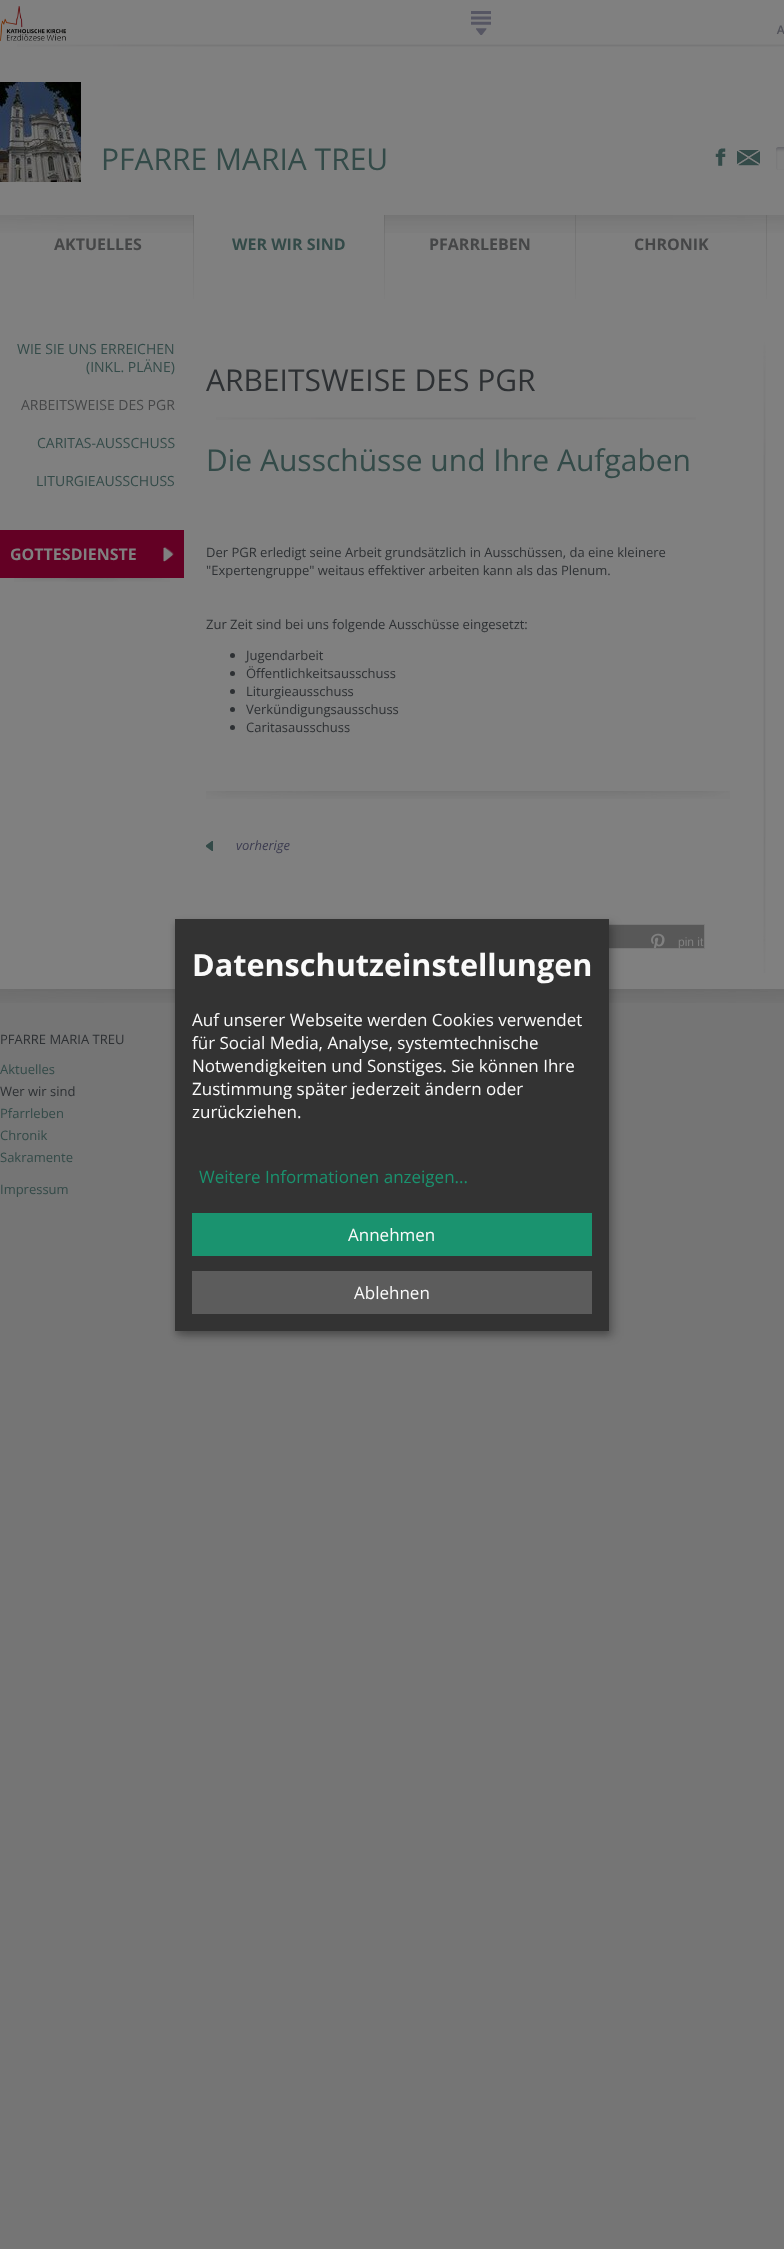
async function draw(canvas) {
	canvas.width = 784;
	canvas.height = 2249;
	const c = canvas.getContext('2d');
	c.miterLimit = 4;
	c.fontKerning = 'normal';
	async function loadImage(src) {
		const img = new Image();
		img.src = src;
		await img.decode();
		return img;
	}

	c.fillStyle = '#757575';
	c.fillRect(0, 0, 784, 2249);
	c.fillStyle = '#808080';
	c.fillRect(0, 0, 784, 989);
	c.drawImage(await loadImage('img1.png'), 17, 44, 767, 3);
	c.drawImage(await loadImage('img2.png'), 0, 6, 66, 35);
	c.drawImage(await loadImage('img3.png'), 471, 11, 20, 24);
	c.drawImage(await loadImage('img4.png'), 776, 25, 8, 9);
	c.drawImage(await loadImage('img5.png'), 0, 82, 81, 100);
	c.font = '30px Open Sans';
	c.fillStyle = '#334a48';
	c.fillText('PFARRE MARIA TREU', 101, 170);
	c.drawImage(await loadImage('img6.png'), 715, 148, 11, 18);
	c.drawImage(await loadImage('img7.png'), 737, 150, 23, 16);
	c.drawImage(await loadImage('img8.png'), 776, 147, 8, 23);
	c.drawImage(await loadImage('img9.png'), 0, 215, 784, 18);
	c.font = 'bold 16px Open Sans';
	c.fillStyle = '#454647';
	c.fillText('AKTUELLES', 54, 250);
	c.drawImage(await loadImage('img10.png'), 193, 215, 1, 84);
	c.fillStyle = '#808080';
	c.fillRect(194, 215, 190, 18);
	c.fillStyle = '#334a48';
	c.fillText('WER WIR SIND', 232, 250);
	c.drawImage(await loadImage('img10.png'), 384, 215, 1, 84);
	c.fillStyle = '#454647';
	c.fillText('PFARRLEBEN', 429, 250);
	c.drawImage(await loadImage('img10.png'), 575, 215, 1, 84);
	c.fillText('CHRONIK', 634, 250);
	c.drawImage(await loadImage('img11.png'), 766, 215, 1, 84);
	c.font = '14px Open Sans';
	c.fillStyle = '#334a48';
	c.fillText('WIE SIE UNS ERREICHEN', 17, 354);
	c.fillText('(INKL. PLÄNE)', 86, 372);
	c.fillStyle = '#454647';
	c.fillText('ARBEITSWEISE DES PGR', 21, 410);
	c.fillStyle = '#334a48';
	c.fillText('CARITAS-AUSSCHUSS', 37, 448);
	c.fillText('LITURGIEAUSSCHUSS', 36, 486);
	c.fillStyle = '#630024';
	c.fillRect(0, 530, 184, 48);
	c.drawImage(await loadImage('img12.png'), 163, 547, 11, 15);
	c.font = 'bold 16px Open Sans';
	c.fillStyle = '#808080';
	c.fillText('GOTTESDIENSTE', 10, 560);
	c.drawImage(await loadImage('img13.png'), 14, 578, 156, 4);
	c.drawImage(await loadImage('img14.png'), 763, 455, 3, 518);
	c.drawImage(await loadImage('img15.png'), 763, 340, 3, 115);
	c.drawImage(await loadImage('img16.png'), 216, 417, 480, 3);
	c.font = '30px Open Sans';
	c.fillStyle = '#2d3033';
	c.fillText('ARBEITSWEISE DES PGR', 206, 391);
	c.fillStyle = '#334a48';
	c.fillText('Die Ausschüsse und Ihre Aufgaben', 206, 471);
	c.font = '13px Open Sans';
	c.fillStyle = '#2d3033';
	for (const [text, x, y] of [
		['Der PGR erledigt seine Arbeit grundsätzlich in Ausschüssen, da eine kleinere', 206, 557],
		['"Expertengruppe" weitaus effektiver arbeiten kann als das Plenum.', 206, 575],
		['Zur Zeit sind bei uns folgende Ausschüsse eingesetzt:', 206, 629],
	]) {
		c.fillText(text, x, y);
	}
	c.beginPath();
	c.arc(232.5, 655.5, 2.5, 0, 2 * Math.PI);
	c.fill();
	c.fillText('Jugendarbeit', 246, 660);
	c.beginPath();
	c.arc(232.5, 673.5, 2.5, 0, 2 * Math.PI);
	c.fill();
	c.fillText('Öffentlichkeitsausschuss', 246, 678);
	c.beginPath();
	c.arc(232.5, 691.5, 2.5, 0, 2 * Math.PI);
	c.fill();
	c.fillText('Liturgieausschuss', 246, 696);
	c.beginPath();
	c.arc(232.5, 709.5, 2.5, 0, 2 * Math.PI);
	c.fill();
	c.fillText('Verkündigungsausschuss', 246, 714);
	c.beginPath();
	c.arc(232.5, 727.5, 2.5, 0, 2 * Math.PI);
	c.fill();
	c.fillText('Caritasausschuss', 246, 732);
	c.drawImage(await loadImage('img17.png'), 206, 791, 524, 8);
	c.drawImage(await loadImage('img18.png'), 206, 841, 7, 10);
	c.font = 'italic 13px Open Sans';
	c.fillStyle = '#3c3c50';
	c.fillText('vorherige', 236, 850);
	c.strokeStyle = '#777';
	c.strokeRect(545.5, 924.5, 159, 24);
	c.fillStyle = '#585858';
	c.fillRect(609, 925, 95, 23);
	c.drawImage(await loadImage('img19.png'), 651, 933, 14, 15);
	c.font = '12px Liberation Sans';
	c.fillStyle = '#808080';
	c.fillText('pin it', 678, 946);
	c.drawImage(await loadImage('img20.png'), 0, 989, 784, 14);
	c.font = '13px Open Sans';
	c.fillStyle = '#2d3033';
	c.fillText('PFARRE MARIA TREU', 0, 1044);
	c.fillStyle = '#334a48';
	c.fillText('Aktuelles', 0, 1074);
	c.fillStyle = '#2d3033';
	c.fillText('Wer wir sind', 0, 1096);
	c.fillStyle = '#334a48';
	for (const [text, x, y] of [
		['Pfarrleben', 0, 1118],
		['Chronik', 0, 1140],
		['Sakramente', 0, 1162],
		['Impressum', 0, 1194],
	]) {
		c.fillText(text, x, y);
	}
	c.fillStyle = '#00000030';
	c.filter = 'blur(5px)';
	c.beginPath();
	c.rect(180, 924, 434, 412);
	c.fill();
	c.filter = 'none';
	c.fillStyle = '#00000033';
	c.filter = 'blur(3px)';
	c.beginPath();
	c.rect(175, 923, 434, 412);
	c.fill();
	c.filter = 'none';
	c.fillStyle = '#333';
	c.fillRect(175, 919, 434, 412);
	c.font = 'bold 30.6px Open Sans';
	c.fillStyle = '#fafafa';
	c.fillText('Datenschutzeinstellungen', 192, 976);
	c.font = '17px Open Sans';
	for (const [text, x, y] of [
		['Auf unserer Webseite werden Cookies verwendet', 192, 1026],
		['für Social Media, Analyse, systemtechnische', 192, 1049],
		['Notwendigkeiten und Sonstiges. Sie können Ihre', 192, 1072],
		['Zustimmung später jederzeit ändern oder', 192, 1095],
		['zurückziehen.', 192, 1118],
	]) {
		c.fillText(text, x, y);
	}
	c.fillStyle = '#1a936f';
	c.fillText('Weitere Informationen anzeigen...', 199, 1183);
	c.fillRect(192, 1213, 400, 43);
	c.fillStyle = '#fafafa';
	c.fillText('Annehmen', 348, 1241);
	c.fillStyle = '#5c5c5c';
	c.fillRect(192, 1271, 400, 43);
	c.fillStyle = '#fafafa';
	c.fillText('Ablehnen', 354, 1299);
}

draw(document.querySelector('canvas'));
